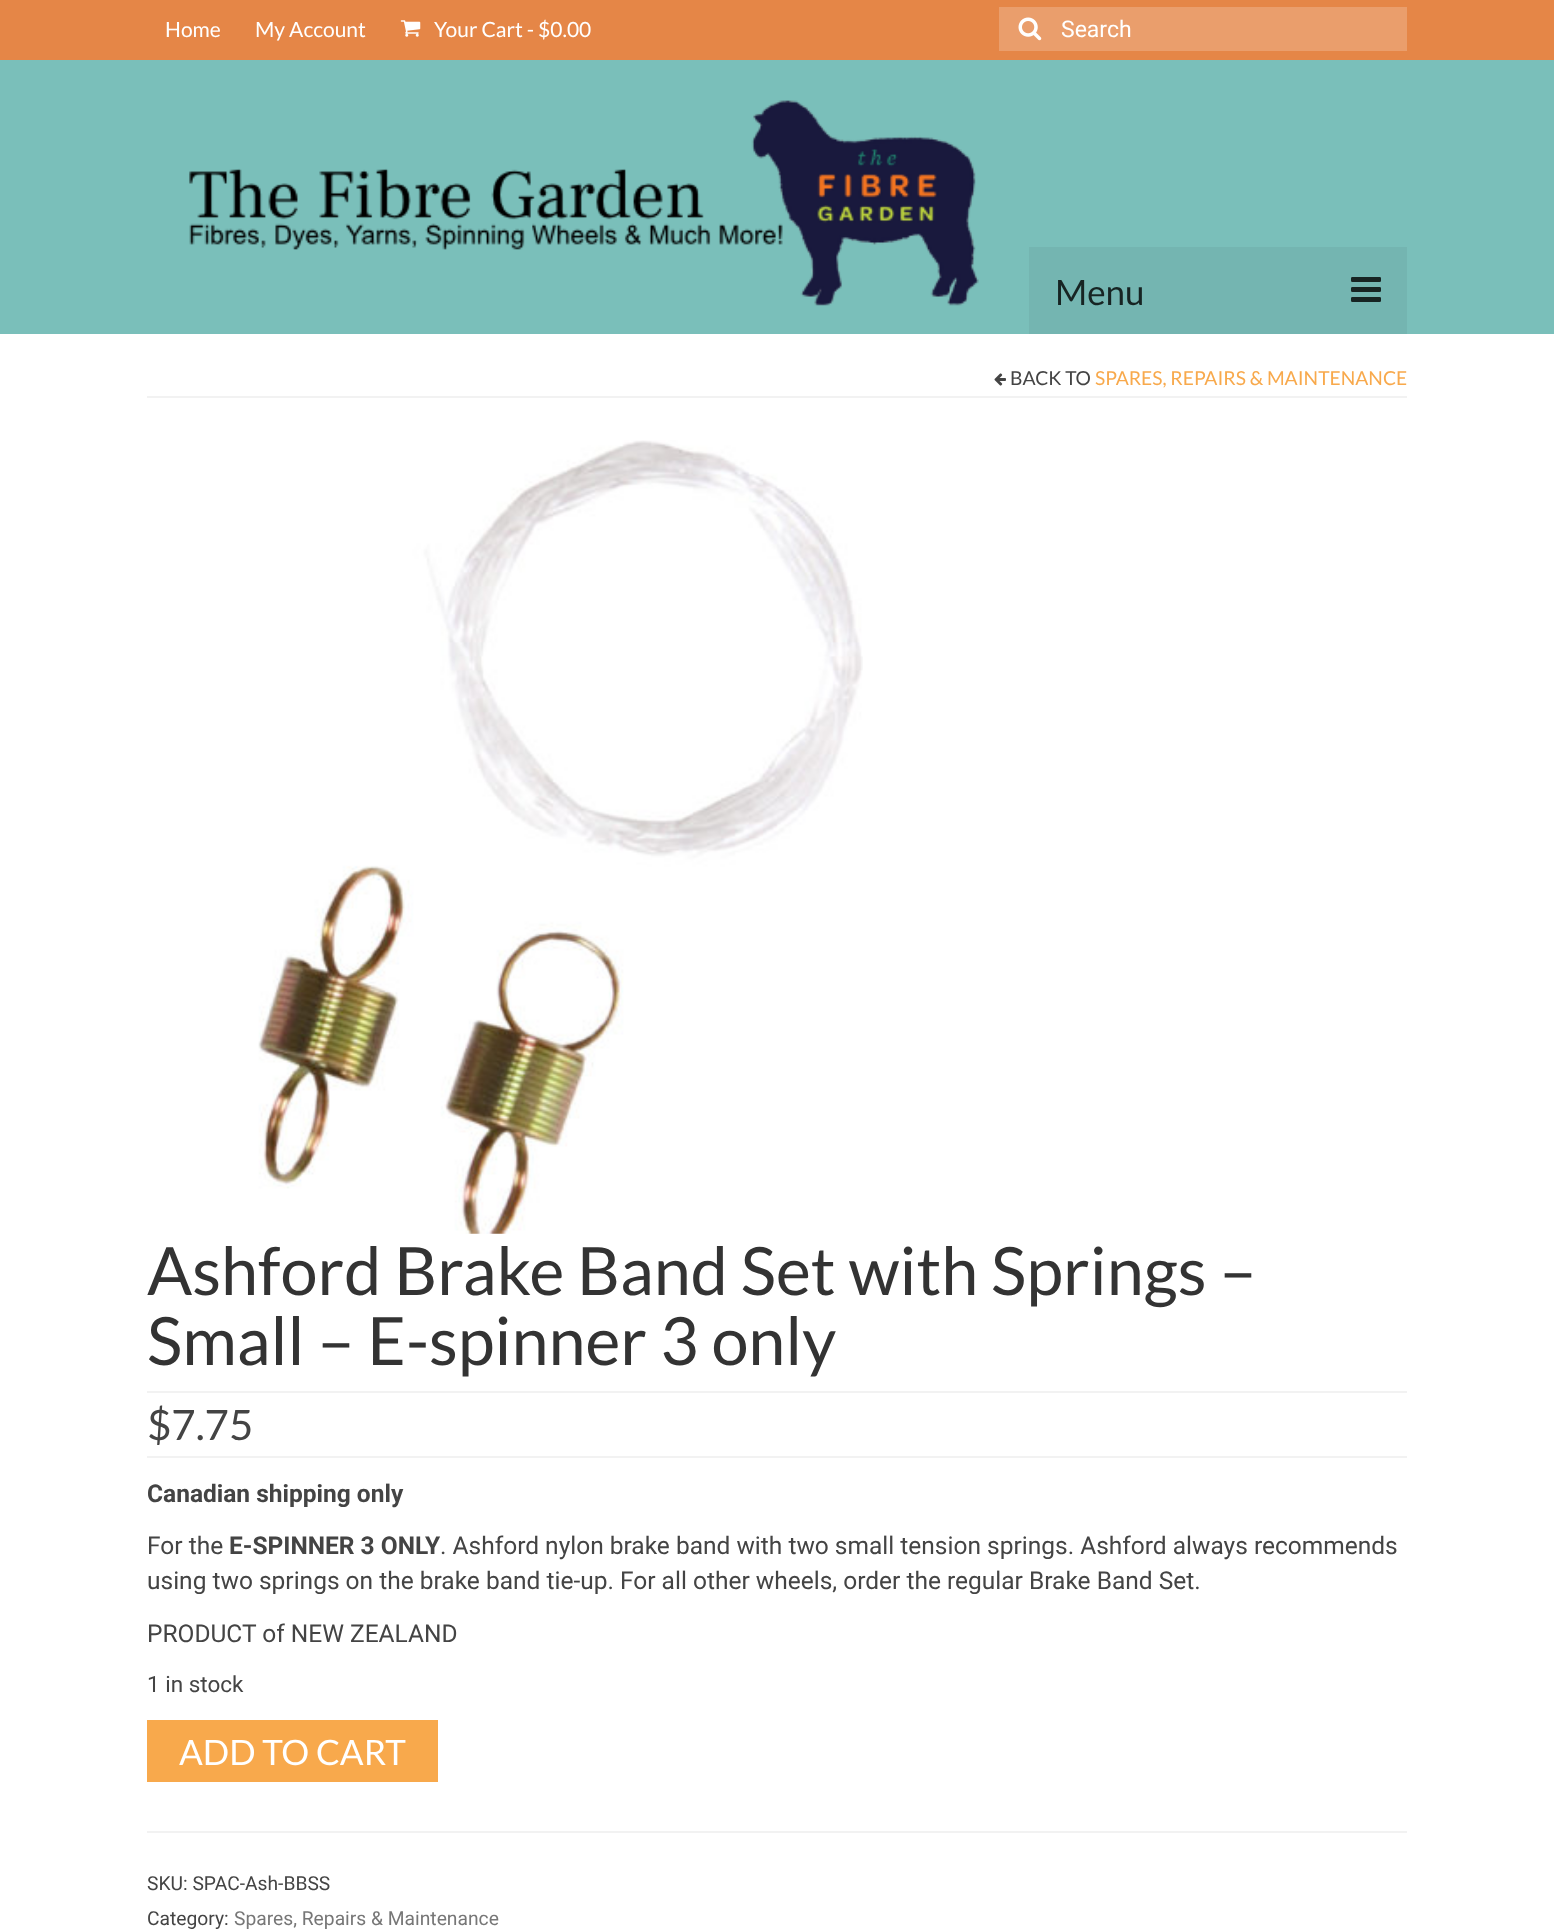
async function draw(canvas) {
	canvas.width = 1554;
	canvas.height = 1929;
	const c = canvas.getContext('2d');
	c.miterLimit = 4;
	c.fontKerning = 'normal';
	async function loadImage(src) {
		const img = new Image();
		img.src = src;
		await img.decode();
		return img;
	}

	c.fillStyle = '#fff';
	c.fillRect(0, 0, 1554, 1929);
	c.fillStyle = '#7abfba';
	c.fillRect(0, 60, 1554, 274);
	c.fillStyle = '#e58647';
	c.fillRect(0, 0, 1554, 60);
	c.font = '21px Lato';
	c.fillStyle = '#fff';
	c.fillText('Home', 165, 37);
	c.fillText('My Account', 255, 37);
	c.drawImage(await loadImage('img1.png'), 400, 20, 21, 17);
	c.fillText('Your Cart - $0.00', 434, 37);
	c.fillStyle = '#ea9e6c';
	c.fillRect(999, 7, 408, 44);
	c.drawImage(await loadImage('img2.png'), 1018, 17, 24, 24);
	c.font = '23px Roboto';
	c.fillStyle = '#fff';
	c.fillText('Search', 1061, 37);
	c.drawImage(await loadImage('img3.png'), 189, 100, 790, 206);
	c.fillStyle = '#74b5b1';
	c.fillRect(1029, 247, 378, 87);
	c.font = '35px Lato';
	c.fillStyle = '#172423';
	c.fillText('Menu', 1055, 305);
	c.drawImage(await loadImage('img4.png'), 1351, 277, 30, 25);
	c.fillStyle = '#f2f2f2';
	c.fillRect(147, 396, 1260, 2);
	c.drawImage(await loadImage('img5.png'), 994, 373, 12, 13);
	c.font = '19.25px Lato';
	c.fillStyle = '#444';
	c.fillText('BACK TO', 1010, 385);
	c.fillStyle = '#f8a94c';
	c.fillText('SPARES, REPAIRS & MAINTENANCE', 1095, 385);
	c.drawImage(await loadImage('img6.png'), 258, 440, 605, 794);
	c.font = '66.5px Lato';
	c.fillStyle = '#333';
	c.fillText('Ashford Brake Band Set with Springs –', 147, 1295);
	c.fillText('Small – E-spinner 3 only', 147, 1365);
	c.fillStyle = '#f2f2f2';
	c.fillRect(147, 1391, 1260, 2);
	c.fillRect(147, 1456, 1260, 2);
	c.font = '42px Lato';
	c.fillStyle = '#444';
	c.fillText('$7.75', 147, 1440);
	c.font = 'bold 24.5px Roboto';
	c.fillText('Canadian shipping only', 147, 1502);
	c.font = '24.5px Roboto';
	c.fillText('For the', 147, 1554);
	c.font = 'bold 24.5px Roboto';
	c.fillText('E-SPINNER 3 ONLY', 229, 1554);
	c.font = '24.5px Roboto';
	for (const [text, x, y] of [
		['. Ashford nylon brake band with two small tension springs. Ashford always recommends', 440, 1554],
		['using two springs on the brake band tie-up. For all other wheels, order the regular Brake Band Set.', 147, 1589],
		['PRODUCT of NEW ZEALAND', 147, 1642],
	]) {
		c.fillText(text, x, y);
	}
	c.font = '22.5px Roboto';
	c.fillText('1 in stock', 147, 1692);
	c.fillStyle = '#f8a94c';
	c.fillRect(147, 1720, 291, 62);
	c.font = '35px Lato';
	c.fillStyle = '#fff';
	c.fillText('ADD TO CART', 179, 1765);
	c.fillStyle = '#f2f2f2';
	c.fillRect(147, 1831, 1260, 2);
	c.font = '19.25px Roboto';
	c.fillStyle = '#444';
	c.fillText('SKU: SPAC-Ash-BBSS', 147, 1890);
	c.fillText('Category:', 147, 1925);
	c.fillStyle = '#777';
	c.fillText('Spares, Repairs & Maintenance', 234, 1925);
}

draw(document.querySelector('canvas'));
